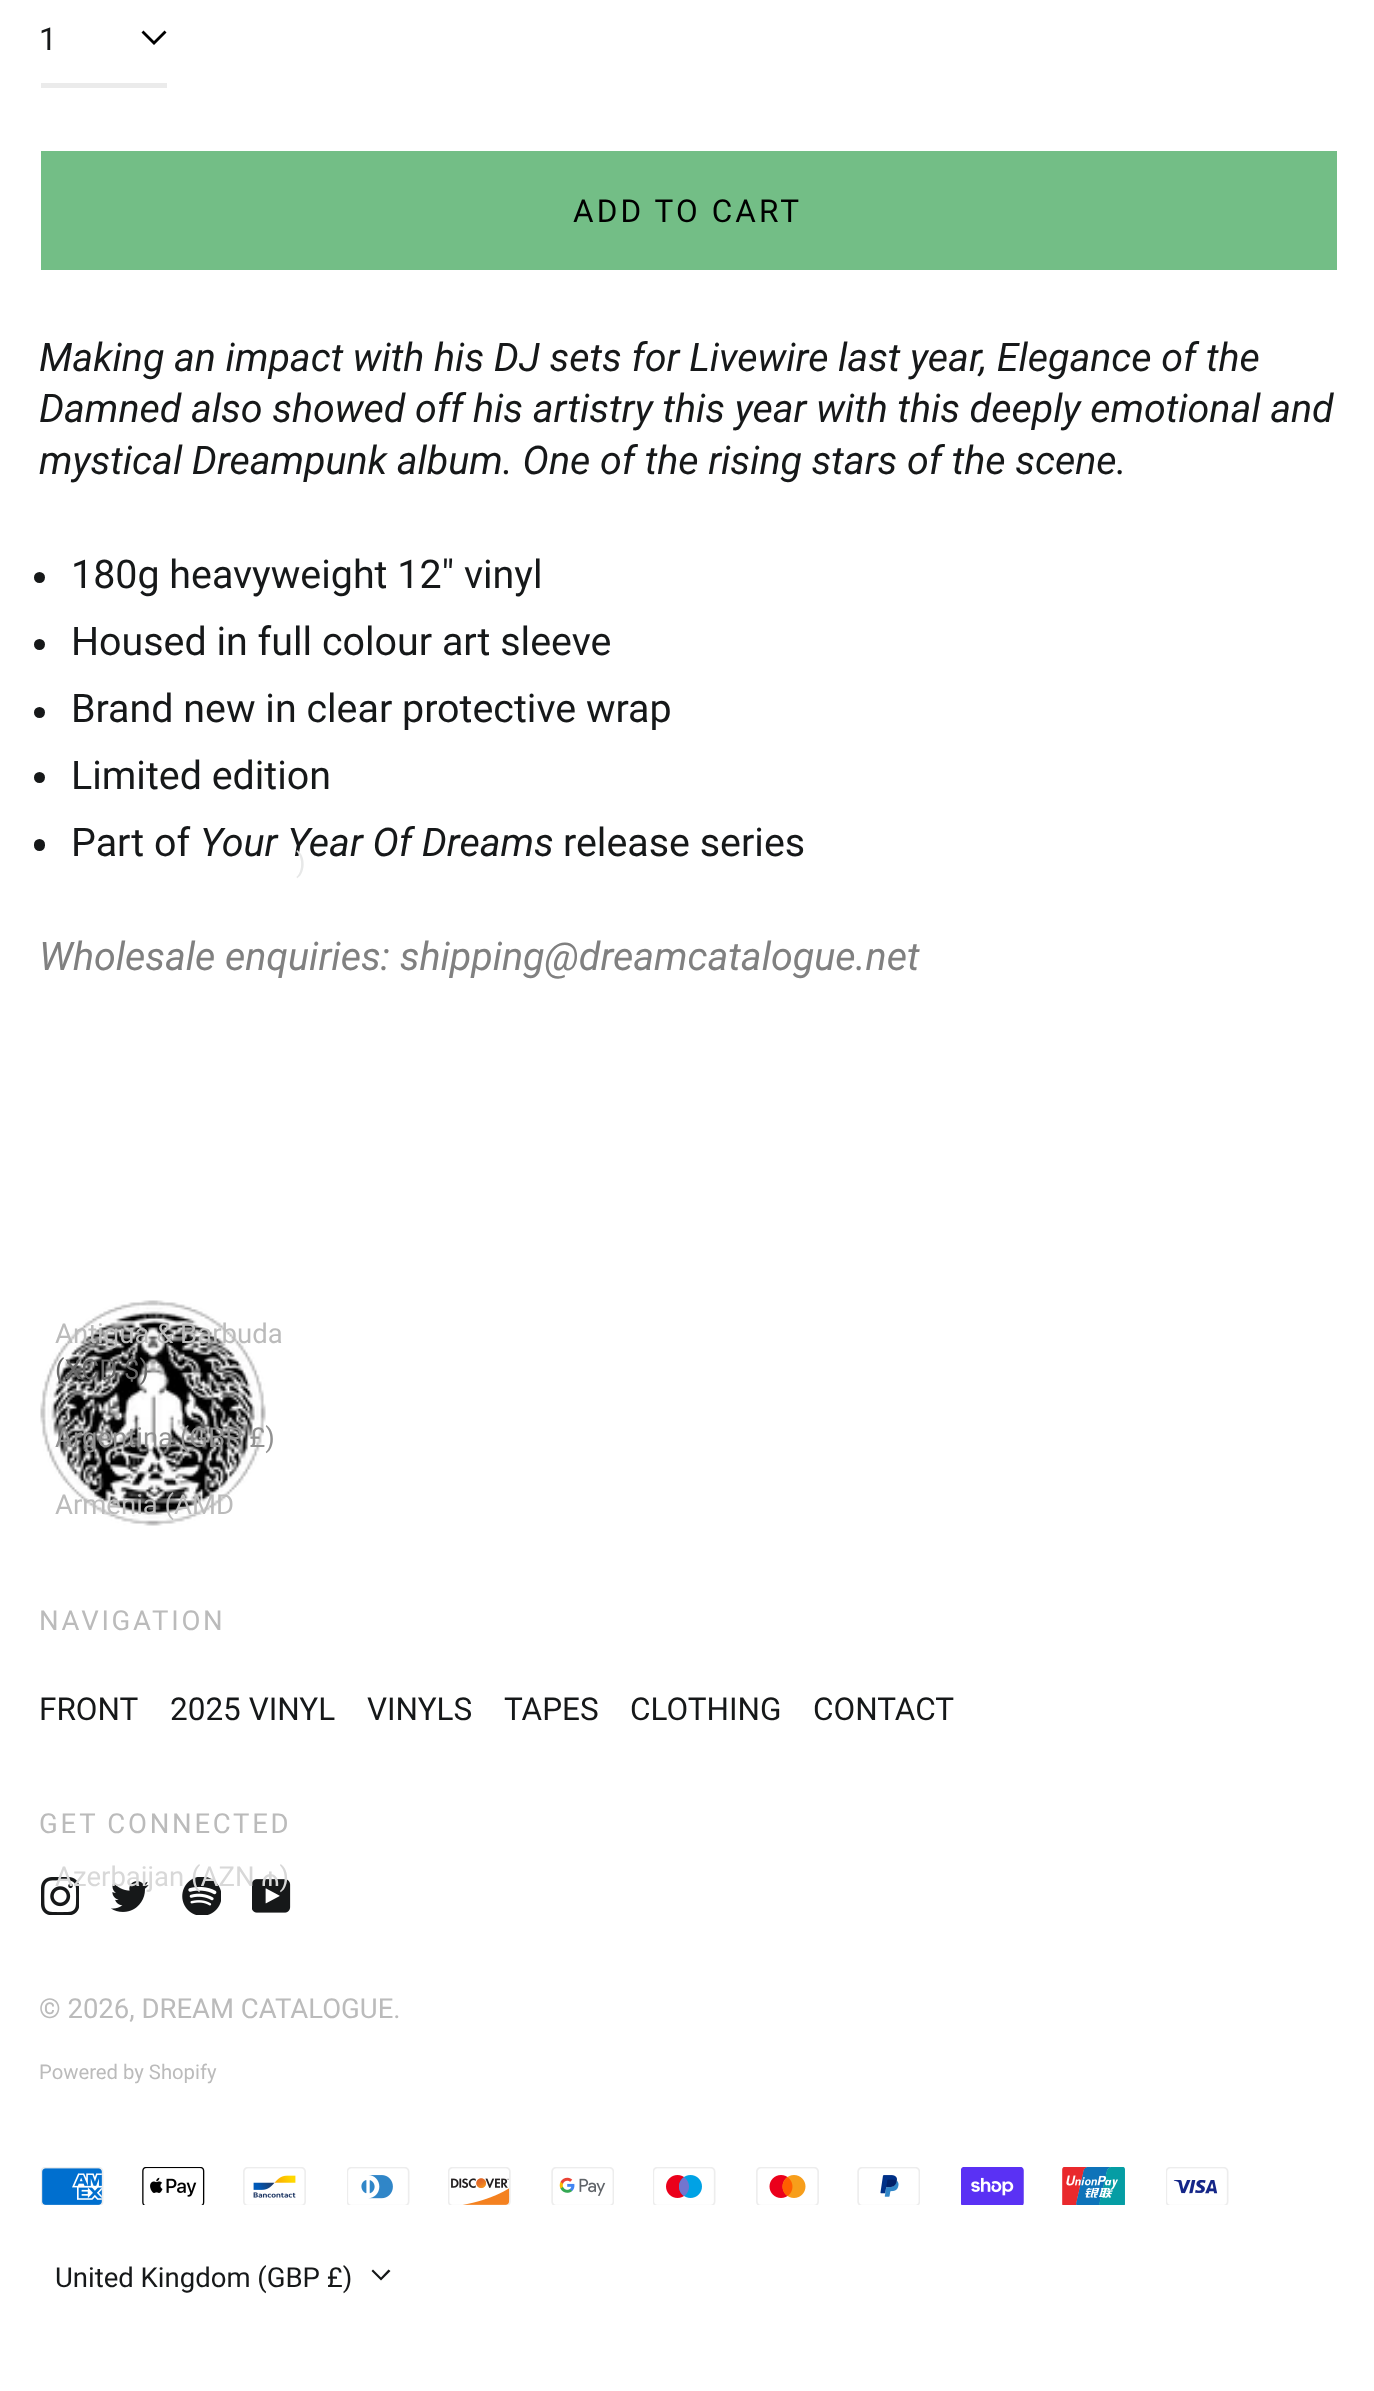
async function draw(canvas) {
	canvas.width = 1374;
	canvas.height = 2391;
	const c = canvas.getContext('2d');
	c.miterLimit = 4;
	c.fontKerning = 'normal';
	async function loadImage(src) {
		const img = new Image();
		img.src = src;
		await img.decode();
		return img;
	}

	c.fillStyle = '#fff';
	c.fillRect(0, 0, 1374, 2391);
	c.fillStyle = '#000';
	c.beginPath();
	c.moveTo(164.5, 30.5);
	c.lineTo(166.5, 32.5);
	c.lineTo(154, 45);
	c.lineTo(141.5, 32.5);
	c.lineTo(143.5, 30.5);
	c.lineTo(154, 41);
	c.closePath();
	c.fill('evenodd');
	c.fillStyle = '#ebebeb';
	c.fillRect(41, 83, 126, 5);
	c.font = '31.5px Roboto';
	c.fillStyle = '#161819';
	c.fillText('1', 39, 50);
	c.fillStyle = '#73be86';
	c.fillRect(41, 151, 1296, 119);
	c.letterSpacing = '3.1px';
	c.fillStyle = '#000';
	c.fillText('ADD TO CART', 573, 222);
	c.letterSpacing = '0px';
	c.font = 'italic 39.4px Roboto';
	c.fillStyle = '#161819';
	for (const [text, x, y] of [
		['Making an impact with his DJ sets for Livewire last year, Elegance of the', 39, 371],
		['Damned also showed off his artistry this year with this deeply emotional and', 39, 422],
		['mystical Dreampunk album. One of the rising stars of the scene.', 39, 474],
	]) {
		c.fillText(text, x, y);
	}
	c.beginPath();
	c.arc(39.5, 577.5, 5.5, 0, 2 * Math.PI);
	c.fill();
	c.font = '39.4px Roboto';
	c.fillText('180g heavyweight 12" vinyl', 71, 588);
	c.beginPath();
	c.arc(39.5, 644.5, 5.5, 0, 2 * Math.PI);
	c.fill();
	c.fillText('Housed in full colour art sleeve', 71, 655);
	c.beginPath();
	c.arc(39.5, 712.5, 5.5, 0, 2 * Math.PI);
	c.fill();
	c.fillText('Brand new in clear protective wrap', 71, 722);
	c.beginPath();
	c.arc(39.5, 777.5, 5.5, 0, 2 * Math.PI);
	c.fill();
	c.fillText('Limited edition', 71, 789);
	c.beginPath();
	c.roundRect(34, 839, 11, 12, 5.5);
	c.fill();
	c.fillText('Part of', 71, 856);
	c.font = 'italic 39.4px Roboto';
	c.fillText('Your Year Of Dreams', 200, 856);
	c.font = '39.4px Roboto';
	c.fillText('release series', 563, 856);
	c.font = 'italic 39.4px Roboto';
	c.fillStyle = '#808080';
	c.fillText('Wholesale enquiries: shipping@dreamcatalogue.net', 39, 970);
	c.font = '27.5px Roboto';
	c.fillStyle = '#e7e8e8';
	c.fillText(')', 296, 872);
	c.drawImage(await loadImage('img13.png'), 40, 1300, 226, 226);
	c.fillStyle = '#bbb';
	c.fillText('Antigua & Barbuda', 55, 1343);
	c.fillStyle = '#6a6a6a';
	c.fillText('(XCD $)', 55, 1379);
	c.fillStyle = '#919191';
	c.fillText('Argentina (GBP £)', 55, 1447);
	c.fillStyle = '#bbb';
	c.fillText('Armenia (AMD', 55, 1514);
	c.drawImage(await loadImage('img14.png'), 41, 1877, 38, 38);
	c.drawImage(await loadImage('img15.png'), 111, 1881, 38, 31);
	c.drawImage(await loadImage('img16.png'), 182, 1877, 39, 38);
	c.drawImage(await loadImage('img17.png'), 252, 1879, 39, 34);
	c.fillStyle = '#d8d8d8';
	c.fillText('Azerbaijan (AZN ₼)', 55, 1886);
	c.fillStyle = '#161819';
	c.fillText('United Kingdom (GBP £)', 55, 2287);
	c.beginPath();
	c.moveTo(388.5, 2269.5);
	c.lineTo(390.5, 2271);
	c.lineTo(381, 2280.5);
	c.lineTo(371.5, 2271);
	c.lineTo(373, 2269.5);
	c.lineTo(381, 2277.5);
	c.closePath();
	c.fill('evenodd');
	c.drawImage(await loadImage('img1.png'), 41, 2167, 63, 38);
	c.drawImage(await loadImage('img2.png'), 142, 2167, 63, 38);
	c.drawImage(await loadImage('img3.png'), 243, 2167, 63, 38);
	c.drawImage(await loadImage('img4.png'), 347, 2167, 63, 38);
	c.drawImage(await loadImage('img5.png'), 448, 2167, 63, 38);
	c.drawImage(await loadImage('img6.png'), 551, 2167, 63, 38);
	c.drawImage(await loadImage('img7.png'), 653, 2167, 63, 38);
	c.drawImage(await loadImage('img8.png'), 756, 2167, 63, 38);
	c.drawImage(await loadImage('img9.png'), 857, 2167, 63, 38);
	c.drawImage(await loadImage('img10.png'), 961, 2167, 63, 38);
	c.drawImage(await loadImage('img11.png'), 1062, 2167, 63, 38);
	c.drawImage(await loadImage('img12.png'), 1166, 2167, 63, 38);
	c.fillStyle = '#bbb';
	c.fillText('© 2026, DREAM CATALOGUE.', 39, 2018);
	c.font = '20.25px Roboto';
	c.fillText('Powered by Shopify', 39, 2079);
	c.letterSpacing = '2.75px';
	c.font = '27.5px Roboto';
	c.fillText('NAVIGATION', 39, 1630);
	c.letterSpacing = '0px';
	c.font = '31.5px Roboto';
	c.fillStyle = '#161819';
	for (const [text, x, y] of [
		['FRONT', 39, 1720],
		['2025 VINYL', 170, 1720],
		['VINYLS', 367, 1720],
		['TAPES', 504, 1720],
		['CLOTHING', 630, 1720],
		['CONTACT', 813, 1720],
	]) {
		c.fillText(text, x, y);
	}
	c.letterSpacing = '2.75px';
	c.font = '27.5px Roboto';
	c.fillStyle = '#bbb';
	c.fillText('GET CONNECTED', 39, 1833);
}

draw(document.querySelector('canvas'));
